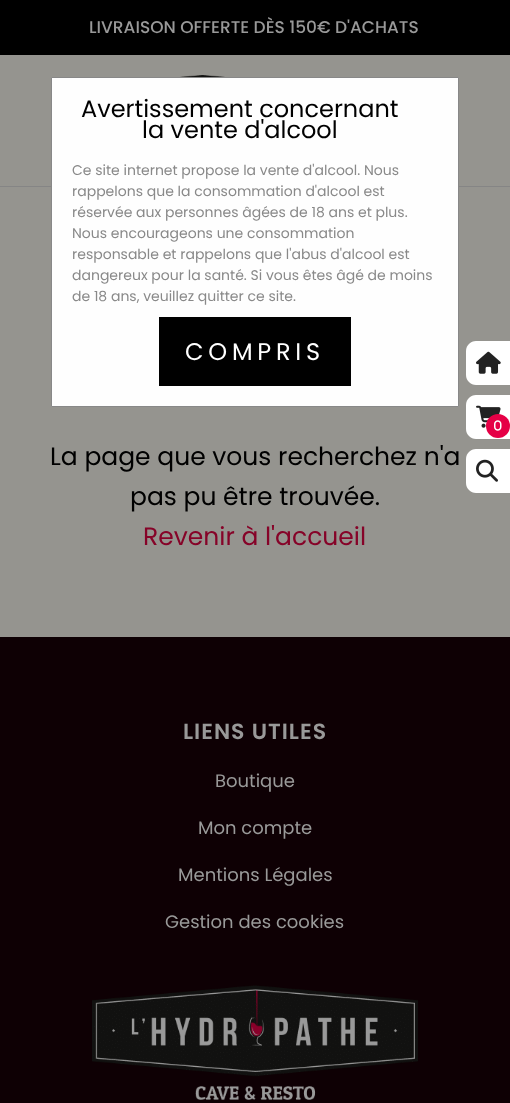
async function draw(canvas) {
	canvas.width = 510;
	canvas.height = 1103;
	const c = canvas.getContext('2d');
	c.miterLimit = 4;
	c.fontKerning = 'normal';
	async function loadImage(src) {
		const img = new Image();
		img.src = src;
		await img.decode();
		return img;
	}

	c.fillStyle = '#95948f';
	c.fillRect(0, 0, 510, 1103);
	c.fillStyle = '#000';
	c.fillRect(0, 0, 510, 55);
	c.font = '500 17px Poppins';
	c.fillStyle = '#999';
	c.fillText('LIVRAISON OFFERTE DÈS 150€ D\'ACHATS', 89, 33);
	c.drawImage(await loadImage('img1.png'), 180, 75, 45, 2);
	c.fillStyle = '#858585';
	c.fillRect(0, 186, 510, 1);
	c.fillStyle = '#fefefe';
	c.beginPath();
	c.rect(51.5, 77.5, 407, 329);
	c.fill();
	c.strokeStyle = '#888';
	c.stroke();
	c.font = '24px Poppins';
	c.fillStyle = '#000';
	c.fillText('Avertissement concernant', 81, 117);
	c.fillText('la vente d\'alcool', 142, 138);
	c.font = '14px Poppins';
	c.fillStyle = '#898989';
	for (const [text, x, y] of [
		['Ce site internet propose la vente d\'alcool. Nous', 72, 175],
		['rappelons que la consommation d\'alcool est', 72, 196],
		['réservée aux personnes âgées de 18 ans et plus.', 72, 217],
		['Nous encourageons une consommation', 72, 238],
		['responsable et rappelons que l\'abus d\'alcool est', 72, 259],
		['dangereux pour la santé. Si vous êtes âgé de moins', 72, 280],
		['de 18 ans, veuillez quitter ce site.', 72, 301],
	]) {
		c.fillText(text, x, y);
	}
	c.fillStyle = '#000';
	c.fillRect(159, 317, 192, 69);
	c.letterSpacing = '4.75px';
	c.font = '24px Poppins';
	c.fillStyle = '#fff';
	c.fillText('COMPRIS', 185, 360);
	c.letterSpacing = '0px';
	c.font = '25px Poppins';
	c.fillStyle = '#000';
	c.fillText('La page que vous recherchez n\'a', 50, 465);
	c.fillText('pas pu être trouvée.', 130, 505);
	c.fillStyle = '#860328';
	c.fillText('Revenir à l\'accueil', 143, 545);
	c.fillStyle = '#fff';
	c.beginPath();
	c.moveTo(476, 341);
	c.lineTo(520, 341);
	c.lineTo(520, 385);
	c.lineTo(476, 385);
	c.bezierCurveTo(470.5, 385, 466, 380.5, 466, 375);
	c.lineTo(466, 351);
	c.bezierCurveTo(466, 345.5, 470.5, 341, 476, 341);
	c.closePath();
	c.fill();
	c.drawImage(await loadImage('img2.png'), 476, 351, 25, 23);
	c.beginPath();
	c.moveTo(476, 395);
	c.lineTo(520, 395);
	c.lineTo(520, 439);
	c.lineTo(476, 439);
	c.bezierCurveTo(470.5, 439, 466, 434.5, 466, 429);
	c.lineTo(466, 405);
	c.bezierCurveTo(466, 399.5, 470.5, 395, 476, 395);
	c.closePath();
	c.fill();
	c.drawImage(await loadImage('img3.png'), 476, 405, 25, 23);
	c.fillStyle = '#e50046';
	c.beginPath();
	c.arc(498, 426, 12, 0, 2 * Math.PI);
	c.fill();
	c.drawImage(await loadImage('img4.png'), 494, 420, 8, 11);
	c.fillStyle = '#fff';
	c.beginPath();
	c.moveTo(476, 449);
	c.lineTo(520, 449);
	c.lineTo(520, 493);
	c.lineTo(476, 493);
	c.bezierCurveTo(470.5, 493, 466, 488.5, 466, 483);
	c.lineTo(466, 459);
	c.bezierCurveTo(466, 453.5, 470.5, 449, 476, 449);
	c.closePath();
	c.fill();
	c.drawImage(await loadImage('img5.png'), 476, 459, 22, 23);
	c.fillStyle = '#0e0004';
	c.fillRect(0, 637, 510, 466);
	c.letterSpacing = '1px';
	c.font = '600 22px Poppins';
	c.fillStyle = '#999';
	c.fillText('LIENS UTILES', 183, 739);
	c.letterSpacing = '0px';
	c.font = '18px Poppins';
	for (const [text, x, y] of [
		['Boutique', 215, 787],
		['Mon compte', 198, 834],
		['Mentions Légales', 178, 881],
		['Gestion des cookies', 165, 928],
	]) {
		c.fillText(text, x, y);
	}
	c.drawImage(await loadImage('img6.png'), 92, 985, 326, 115);
}

draw(document.querySelector('canvas'));
